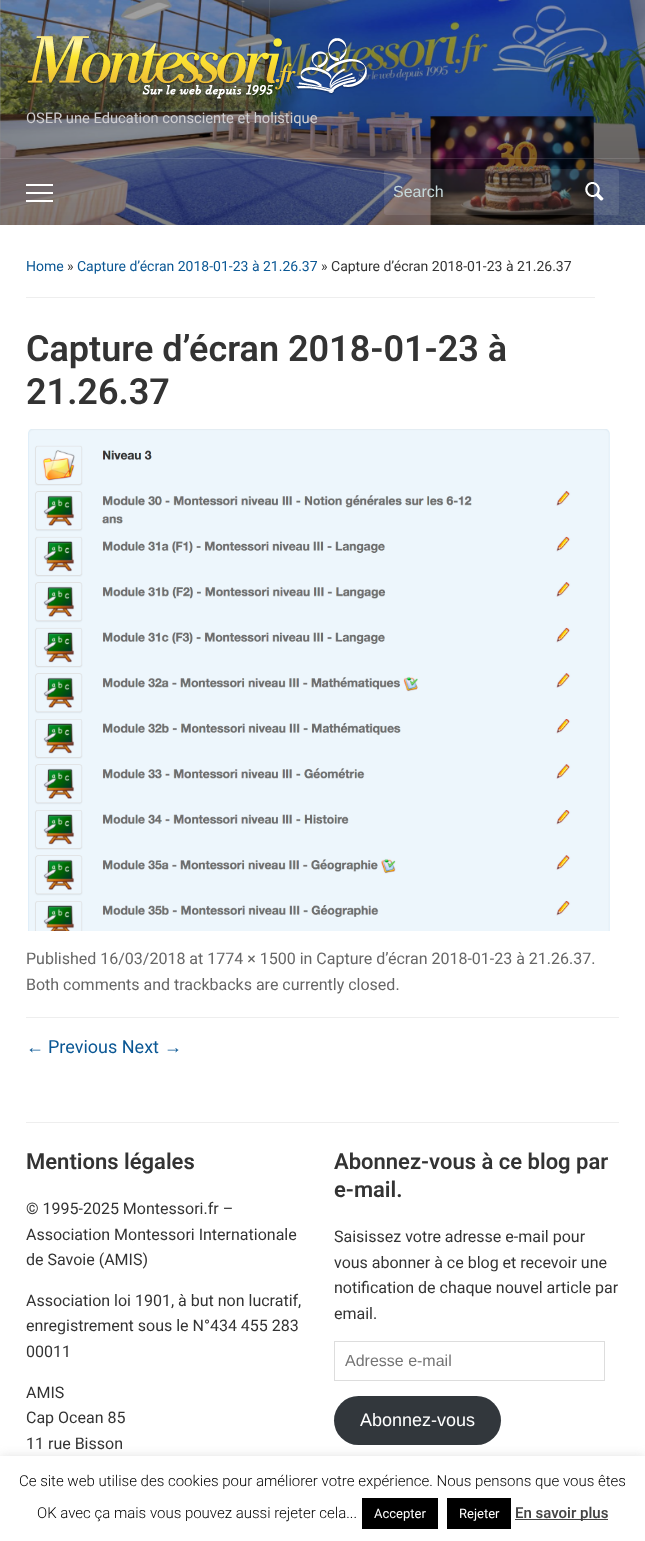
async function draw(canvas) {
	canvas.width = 645;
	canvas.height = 1541;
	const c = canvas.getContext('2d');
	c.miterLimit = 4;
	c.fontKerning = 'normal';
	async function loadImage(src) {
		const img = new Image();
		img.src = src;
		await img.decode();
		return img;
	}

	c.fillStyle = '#fff';
	c.fillRect(0, 0, 645, 1541);
	c.drawImage(await loadImage('img1.png'), 0, 0, 645, 225);
	c.drawImage(await loadImage('img2.png'), 27, 36, 341, 64);
	c.font = '14.7px Roboto';
	c.fillStyle = '#cfced0';
	c.fillText('OSER une Education consciente et holistique', 26, 123);
	for (const [x, y, w, h, color] of [
		[0, 158, 645, 1, '#ffffff21'],
		[26, 184, 27, 2, '#fff'],
		[26, 192, 27, 2, '#fff'],
		[26, 200, 27, 2, '#fff'],
	]) {
		c.fillStyle = color;
		c.fillRect(x, y, w, h);
	}
	c.fillStyle = '#ffffff1a';
	c.beginPath();
	c.roundRect(384, 169, 235, 46, 3);
	c.fill();
	c.font = '16px Liberation Sans';
	c.fillStyle = '#c6d9db';
	c.fillText('Search', 393, 197);
	c.drawImage(await loadImage('img3.png'), 585, 182, 19, 19);
	c.fillStyle = '#eee';
	c.fillRect(26, 297, 569, 1);
	c.font = '14px Roboto';
	c.fillStyle = '#0a5794';
	c.fillText('Home', 26, 271);
	c.fillStyle = '#333';
	c.fillText('»', 67, 271);
	c.fillStyle = '#0a5794';
	c.fillText('Capture d’écran 2018-01-23 à 21.26.37', 77, 271);
	c.fillStyle = '#333';
	c.fillText('» Capture d’écran 2018-01-23 à 21.26.37', 321, 271);
	c.font = '600 36px Roboto';
	c.fillText('Capture d’écran 2018-01-23 à', 26, 361);
	c.fillText('21.26.37', 26, 404);
	c.drawImage(await loadImage('img4.png'), 28, 429, 582, 502);
	c.fillStyle = '#eee';
	c.fillRect(26, 1017, 593, 1);
	c.font = '16px Roboto';
	c.fillStyle = '#666';
	c.fillText('Published 16/03/2018 at 1774 × 1500 in Capture d’écran 2018-01-23 à 21.26.37.', 26, 964);
	c.fillText('Both comments and trackbacks are currently closed.', 26, 990);
	c.font = '18px Liberation Sans';
	c.fillStyle = '#0a5794';
	c.fillText('←', 26, 1053);
	c.font = '18px Roboto';
	c.fillText('Previous Next', 48, 1053);
	c.font = '18px Liberation Sans';
	c.fillText('→', 164, 1053);
	c.fillStyle = '#eee';
	c.fillRect(26, 1122, 593, 1);
	c.font = '600 22px Roboto';
	c.fillStyle = '#333';
	c.fillText('Mentions légales', 26, 1169);
	c.font = '16px Roboto';
	for (const [text, x, y] of [
		['© 1995-2025 Montessori.fr –', 26, 1214],
		['Association Montessori Internationale', 26, 1240],
		['de Savoie (AMIS)', 26, 1265],
		['Association loi 1901, à but non lucratif,', 26, 1306],
		['enregistrement sous le N°434 455 283', 26, 1331],
		['00011', 26, 1357],
		['AMIS', 26, 1398],
		['Cap Ocean 85', 26, 1423],
		['11 rue Bisson', 26, 1449],
	]) {
		c.fillText(text, x, y);
	}
	c.font = '600 22px Roboto';
	c.fillText('Abonnez-vous à ce blog par', 334, 1169);
	c.fillText('e-mail.', 334, 1197);
	c.font = '16px Roboto';
	for (const [text, x, y] of [
		['Saisissez votre adresse e-mail pour', 334, 1242],
		['vous abonner à ce blog et recevoir une', 334, 1268],
		['notification de chaque nouvel article par', 334, 1293],
		['email.', 334, 1319],
	]) {
		c.fillText(text, x, y);
	}
	c.strokeStyle = '#ddd';
	c.strokeRect(334.5, 1341.5, 270, 39);
	c.font = '16px Liberation Sans';
	c.fillStyle = '#757575';
	c.fillText('Adresse e-mail', 345, 1366);
	c.fillStyle = '#32373c';
	c.beginPath();
	c.roundRect(334, 1396, 167, 49, 24.5);
	c.fill();
	c.font = '18px Liberation Sans';
	c.fillStyle = '#fff';
	c.fillText('Abonnez-vous', 360, 1426);
	c.fillStyle = '#acabab4d';
	c.filter = 'blur(5px)';
	c.beginPath();
	c.rect(0, 1455, 645, 85);
	c.fill();
	c.filter = 'none';
	c.fillStyle = '#fff';
	c.fillRect(0, 1456, 645, 85);
	c.font = '300 15px Roboto';
	c.fillStyle = '#000';
	c.fillText('Ce site web utilise des cookies pour améliorer votre expérience. Nous pensons que vous êtes', 19, 1486);
	c.fillText('OK avec ça mais vous pouvez aussi rejeter cela...', 37, 1518);
	c.fillRect(362, 1498, 76, 31);
	c.font = '13px Roboto';
	c.fillStyle = '#fff';
	c.fillText('Accepter', 374, 1518);
	c.fillStyle = '#000';
	c.fillRect(447, 1498, 64, 31);
	c.fillStyle = '#fff';
	c.fillText('Rejeter', 459, 1518);
	c.fillStyle = '#444';
	c.fillRect(515, 1519, 93, 1);
	c.font = '500 15px Roboto';
	c.fillText('En savoir plus', 515, 1518);
}

draw(document.querySelector('canvas'));
